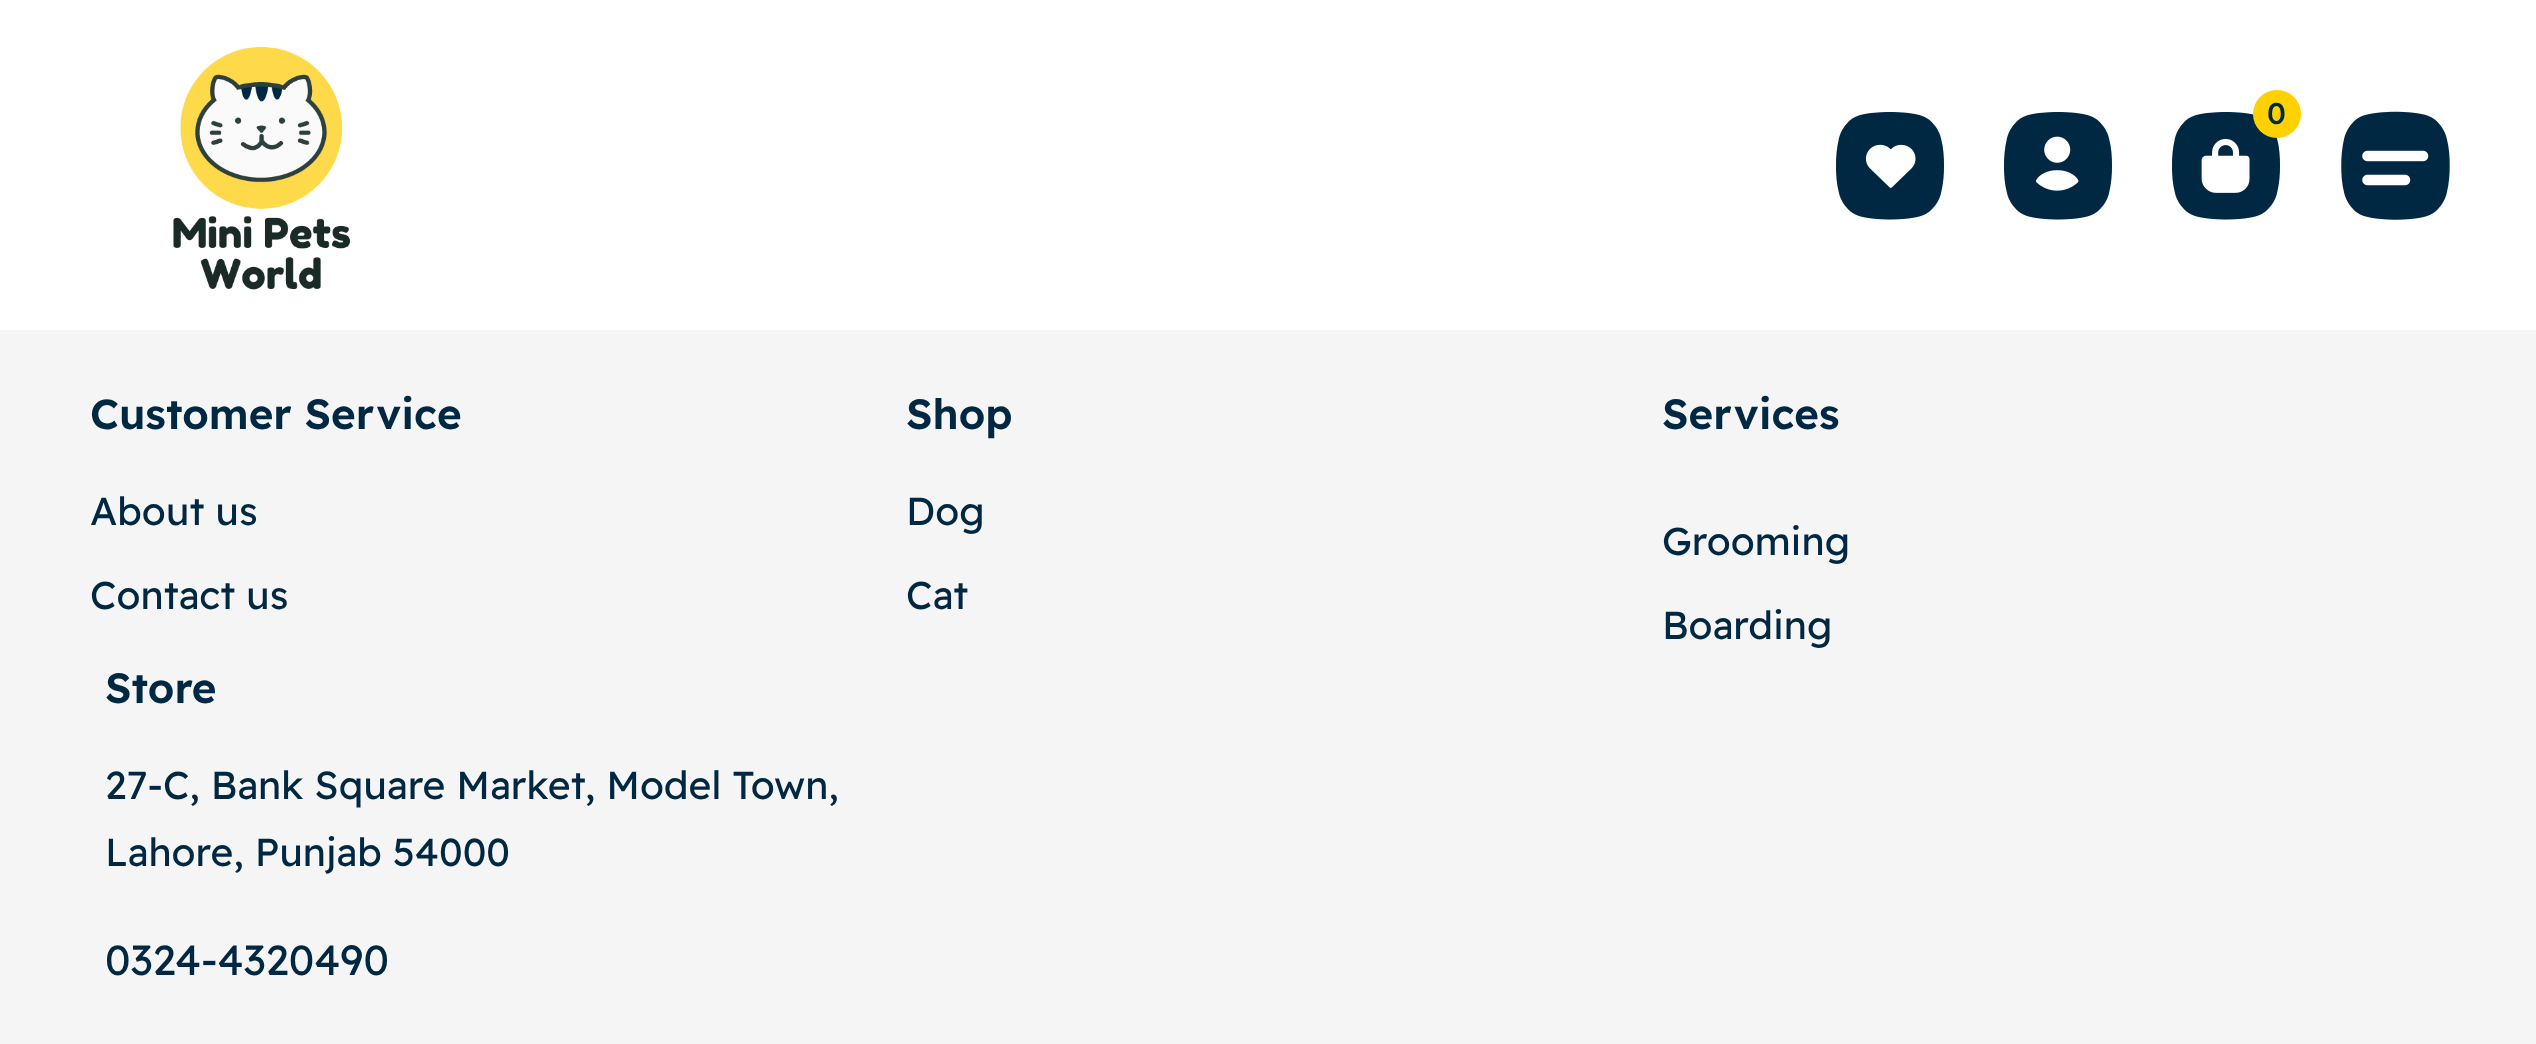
async function draw(canvas) {
	canvas.width = 2536;
	canvas.height = 1044;
	const c = canvas.getContext('2d');
	c.miterLimit = 4;
	c.fontKerning = 'normal';
	async function loadImage(src) {
		const img = new Image();
		img.src = src;
		await img.decode();
		return img;
	}

	c.fillStyle = '#f5f5f5';
	c.fillRect(0, 0, 2536, 1044);
	c.fillStyle = '#fff';
	c.fillRect(0, 0, 2536, 330);
	c.drawImage(await loadImage('img1.png'), 173, 47, 178, 243);
	c.drawImage(await loadImage('img2.png'), 1836, 111, 108, 109);
	c.drawImage(await loadImage('img3.png'), 2004, 111, 108, 109);
	c.drawImage(await loadImage('img4.png'), 2172, 111, 108, 109);
	c.fillStyle = '#ffd100';
	c.beginPath();
	c.arc(2277, 114, 24, 0, 2 * Math.PI);
	c.fill();
	c.font = '500 30px Readex Pro';
	c.fillStyle = '#002842';
	c.fillText('0', 2267, 124);
	c.drawImage(await loadImage('img5.png'), 2341, 111, 109, 109);
	c.font = '600 42px Readex Pro';
	c.fillText('Customer Service', 90, 429);
	c.font = '39px Readex Pro';
	c.fillText('About us', 90, 525);
	c.fillText('Contact us', 90, 609);
	c.font = '600 42px Readex Pro';
	c.fillText('Shop', 906, 429);
	c.font = '39px Readex Pro';
	c.fillText('Dog', 906, 525);
	c.fillText('Cat', 906, 609);
	c.font = '600 42px Readex Pro';
	c.fillText('Services', 1662, 429);
	c.font = '39px Readex Pro';
	c.fillText('Grooming', 1662, 555);
	c.fillText('Boarding', 1662, 639);
	c.font = '600 42px Readex Pro';
	c.fillText('Store', 105, 703);
	c.font = '39px Readex Pro';
	c.fillText('27-C, Bank Square Market, Model Town,', 105, 799);
	c.fillText('Lahore, Punjab 54000', 105, 866);
	c.font = '42px Readex Pro';
	c.fillText('0324-4320490', 105, 975);
}

draw(document.querySelector('canvas'));
